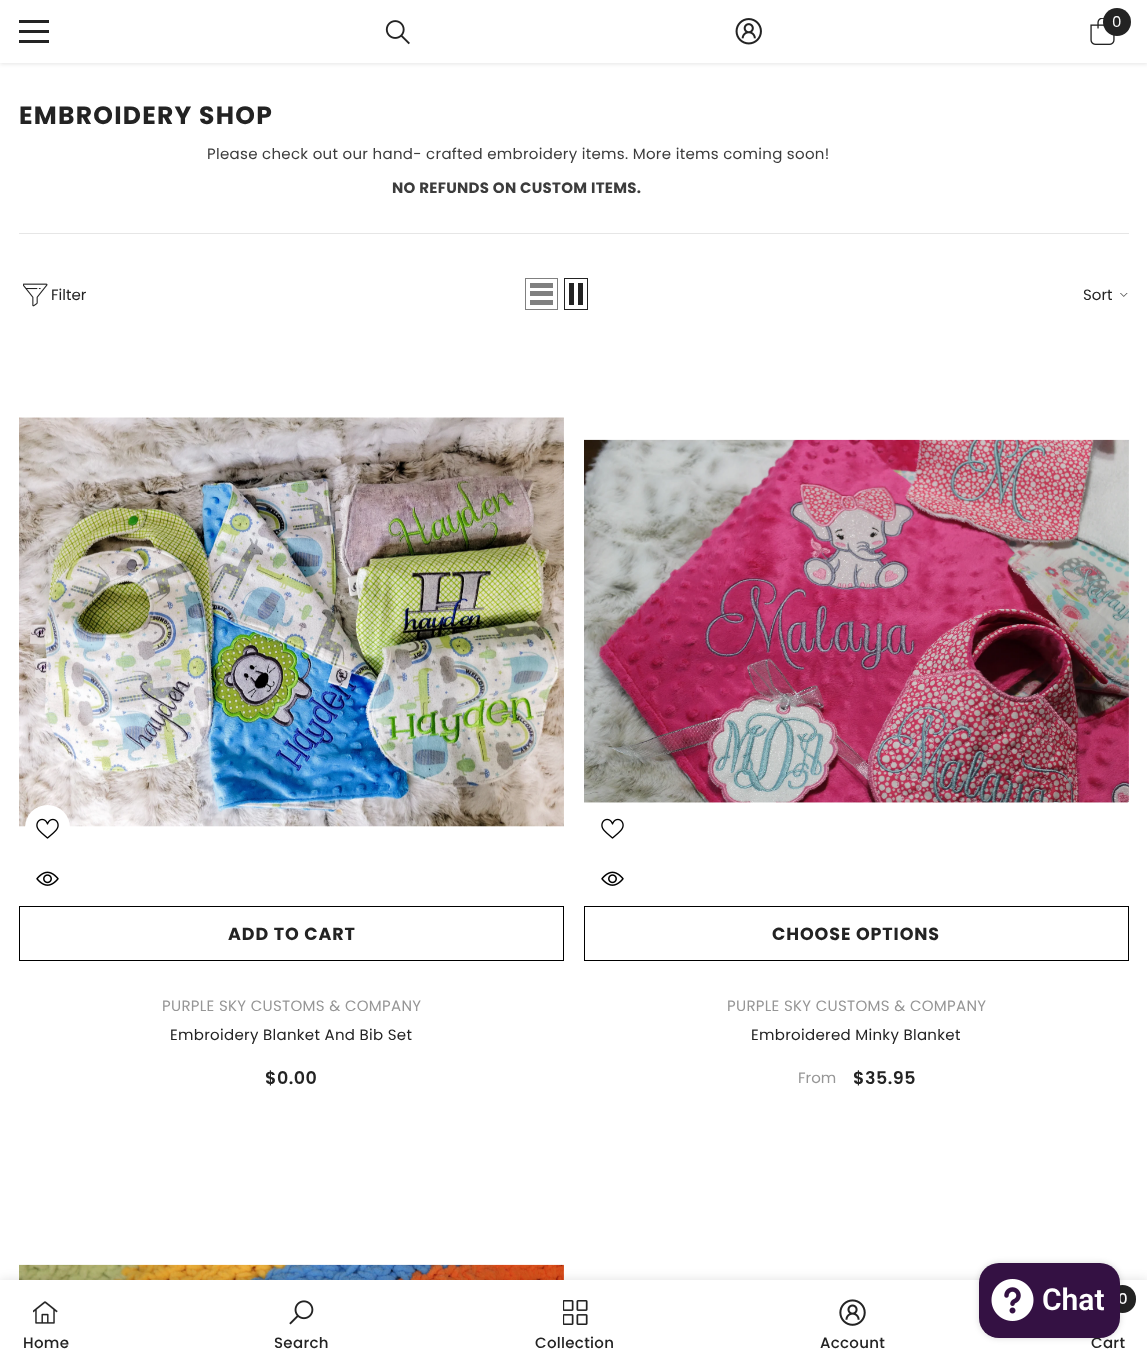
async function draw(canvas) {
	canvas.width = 1147;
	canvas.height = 1363;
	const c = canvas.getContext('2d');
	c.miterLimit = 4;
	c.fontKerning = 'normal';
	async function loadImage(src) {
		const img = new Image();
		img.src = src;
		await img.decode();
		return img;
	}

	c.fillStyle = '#fff';
	c.fillRect(0, 0, 1147, 1363);
	c.fillStyle = '#0000001a';
	c.filter = 'blur(2px)';
	c.beginPath();
	c.rect(0, 1, 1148, 63);
	c.fill();
	c.filter = 'none';
	for (const [x, y, w, h, color] of [
		[0, 0, 1147, 63, '#fff'],
		[19, 30, 30, 3, '#232323'],
		[19, 20, 30, 3, '#232323'],
		[19, 40, 30, 3, '#232323'],
	]) {
		c.fillStyle = color;
		c.fillRect(x, y, w, h);
	}
	c.drawImage(await loadImage('img1.png'), 385, 20, 25, 25);
	c.drawImage(await loadImage('img2.png'), 735, 18, 27, 27);
	c.drawImage(await loadImage('img3.png'), 1090, 18, 25, 27);
	c.beginPath();
	c.arc(1117, 22, 14, 0, 2 * Math.PI);
	c.fill();
	c.font = '15px Poppins';
	c.fillStyle = '#fff';
	c.fillText('0', 1112, 27);
	c.letterSpacing = '1.25px';
	c.font = 'bold 25px Poppins';
	c.fillStyle = '#232323';
	c.fillText('EMBROIDERY SHOP', 19, 124);
	c.letterSpacing = '0.3px';
	c.font = '15px Poppins';
	c.fillStyle = '#3c3c3c';
	c.fillText('Please check out our hand- crafted embroidery items. More items coming soon!', 207, 159);
	c.font = 'bold 15px Poppins';
	c.fillText('NO REFUNDS ON CUSTOM ITEMS.', 392, 193);
	c.fillStyle = '#e6e6e6';
	c.fillRect(19, 233, 1110, 1);
	c.drawImage(await loadImage('img4.png'), 23, 283, 25, 24);
	c.letterSpacing = '0px';
	c.font = '15px Poppins';
	c.fillStyle = '#232323';
	c.fillText('Filter', 51, 300);
	c.strokeStyle = '#808080';
	c.strokeRect(525.5, 278.5, 32, 31);
	for (const [x, y, w, h, color] of [
		[530, 300, 23, 5, '#808080'],
		[530, 291, 23, 5, '#808080'],
		[530, 283, 23, 5, '#808080'],
	]) {
		c.fillStyle = color;
		c.fillRect(x, y, w, h);
	}
	c.strokeStyle = '#232323';
	c.strokeRect(564.5, 278.5, 23, 31);
	c.fillStyle = '#232323';
	c.fillRect(578, 283, 5, 22);
	c.fillRect(569, 283, 5, 22);
	c.fillText('Sort', 1083, 300);
	c.drawImage(await loadImage('img5.png'), 1120, 293, 8, 4);
	c.drawImage(await loadImage('img6.png'), 19, 417, 545, 410);
	c.fillStyle = '#fff';
	c.beginPath();
	c.arc(47.5, 827.5, 22.5, 0, 2 * Math.PI);
	c.fill();
	c.drawImage(await loadImage('img7.png'), 36, 818, 23, 21);
	c.drawImage(await loadImage('img8.png'), 36, 871, 23, 15);
	c.strokeStyle = '#000';
	c.strokeRect(19.5, 906.5, 544, 54);
	c.letterSpacing = '0.9px';
	c.font = 'bold 17.5px Poppins';
	c.fillStyle = '#232323';
	c.fillText('ADD TO CART', 228, 940);
	c.letterSpacing = '0.3px';
	c.font = '15px Poppins';
	c.fillStyle = '#969696';
	c.fillText('PURPLE SKY CUSTOMS & COMPANY', 162, 1011);
	c.fillStyle = '#232323';
	c.fillText('Embroidery Blanket And Bib Set', 170, 1040);
	c.letterSpacing = '0.5px';
	c.font = '600 17.5px Poppins';
	c.fillText('$0.00', 265, 1084);
	c.drawImage(await loadImage('img9.png'), 584, 439, 545, 364);
	c.drawImage(await loadImage('img7.png'), 601, 818, 23, 21);
	c.drawImage(await loadImage('img8.png'), 601, 871, 23, 15);
	c.strokeRect(584.5, 906.5, 544, 54);
	c.letterSpacing = '0.9px';
	c.font = 'bold 17.5px Poppins';
	c.fillText('CHOOSE OPTIONS', 772, 940);
	c.letterSpacing = '0.3px';
	c.font = '15px Poppins';
	c.fillStyle = '#969696';
	c.fillText('PURPLE SKY CUSTOMS & COMPANY', 727, 1011);
	c.fillStyle = '#232323';
	c.fillText('Embroidered Minky Blanket', 751, 1040);
	c.letterSpacing = '0px';
	c.fillStyle = '#969696';
	c.fillText('From', 798, 1083);
	c.letterSpacing = '0.5px';
	c.font = '600 17.5px Poppins';
	c.fillStyle = '#232323';
	c.fillText('$35.95', 853, 1084);
	c.drawImage(await loadImage('img10.png'), 19, 1264, 545, 16);
	c.fillStyle = '#0000001f';
	c.filter = 'blur(5.5px)';
	c.beginPath();
	c.rect(0, 1280, 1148, 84);
	c.fill();
	c.filter = 'none';
	c.fillStyle = '#fff';
	c.fillRect(0, 1280, 1147, 83);
	c.drawImage(await loadImage('img11.png'), 33, 1301, 25, 23);
	c.letterSpacing = '0.3px';
	c.font = '500 15px Poppins';
	c.fillStyle = '#232323';
	c.fillText('Home', 23, 1348);
	c.drawImage(await loadImage('img12.png'), 289, 1300, 25, 25);
	c.fillText('Search', 274, 1348);
	c.drawImage(await loadImage('img13.png'), 563, 1300, 25, 25);
	c.fillText('Collection', 535, 1348);
	c.drawImage(await loadImage('img14.png'), 839, 1299, 27, 27);
	c.fillText('Account', 820, 1348);
	c.beginPath();
	c.roundRect(1109, 1285, 27, 28, 13.5);
	c.fill();
	c.letterSpacing = '0px';
	c.fillStyle = '#fff';
	c.fillText('0', 1118, 1304);
	c.letterSpacing = '0.3px';
	c.fillStyle = '#232323';
	c.fillText('Cart', 1091, 1348);
	c.fillStyle = '#00000026';
	c.filter = 'blur(3px)';
	c.beginPath();
	c.roundRect(979, 1263, 141, 75, 20);
	c.fill();
	c.filter = 'none';
	c.fillStyle = '#341143';
	c.beginPath();
	c.roundRect(979, 1263, 141, 75, 20);
	c.fill();
	c.drawImage(await loadImage('img15.png'), 991, 1279, 43, 42);
	c.letterSpacing = '0px';
	c.font = '600 30px Roboto';
	c.fillStyle = '#fff';
	c.fillText('Chat', 1042, 1310);
}

draw(document.querySelector('canvas'));
